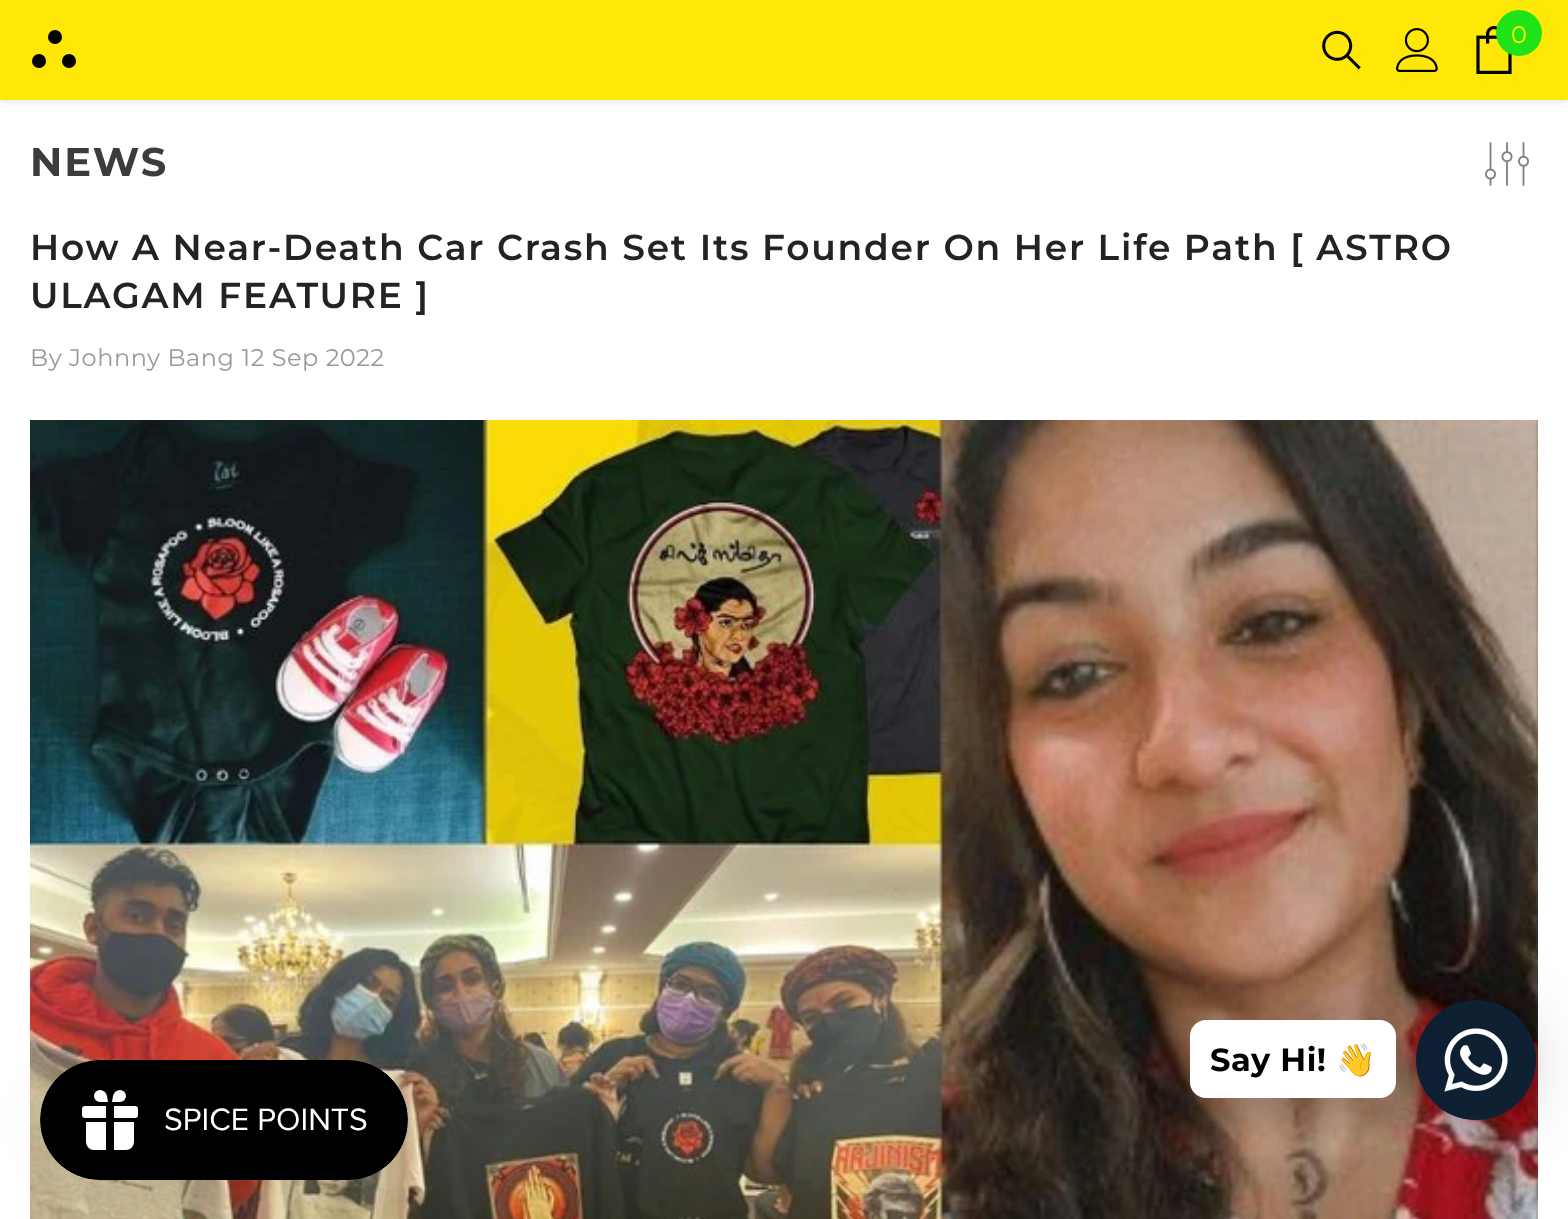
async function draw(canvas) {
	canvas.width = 1568;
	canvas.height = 1219;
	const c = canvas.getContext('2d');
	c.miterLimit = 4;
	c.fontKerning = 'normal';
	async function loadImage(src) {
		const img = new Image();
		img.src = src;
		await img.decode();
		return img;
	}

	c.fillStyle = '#fff';
	c.fillRect(0, 0, 1568, 1219);
	c.fillStyle = '#0000001a';
	c.filter = 'blur(3px)';
	c.beginPath();
	c.rect(0, 2, 1568, 100);
	c.fill();
	c.filter = 'none';
	c.fillStyle = '#ffe708';
	c.fillRect(0, 0, 1568, 100);
	c.fillStyle = '#000';
	c.beginPath();
	c.arc(55, 37, 7, 0, 2 * Math.PI);
	c.fill();
	c.beginPath();
	c.arc(39, 61, 7, 0, 2 * Math.PI);
	c.fill();
	c.beginPath();
	c.arc(69, 61, 7, 0, 2 * Math.PI);
	c.fill();
	c.drawImage(await loadImage('img1.png'), 1322, 30, 39, 40);
	c.drawImage(await loadImage('img2.png'), 1396, 28, 42, 44);
	c.drawImage(await loadImage('img3.png'), 1476, 26, 36, 48);
	c.fillStyle = '#1fe219';
	c.beginPath();
	c.arc(1519, 33, 23, 0, 2 * Math.PI);
	c.fill();
	c.font = '24px Montserrat';
	c.fillStyle = '#fffe01';
	c.fillText('0', 1511, 43);
	c.letterSpacing = '2px';
	c.font = 'bold 40px Montserrat';
	c.fillStyle = '#3c3c3c';
	c.fillText('NEWS', 30, 176);
	c.drawImage(await loadImage('img4.png'), 1485, 142, 44, 44);
	c.letterSpacing = '1.8px';
	c.font = '600 36px Montserrat';
	c.fillStyle = '#232323';
	c.fillText('How A Near-Death Car Crash Set Its Founder On Her Life Path [ ASTRO', 30, 260);
	c.fillText('ULAGAM FEATURE ]', 30, 308);
	c.letterSpacing = '0.55px';
	c.font = '24px Montserrat';
	c.fillStyle = '#999';
	c.fillText('By Johnny Bang 12 Sep 2022', 30, 366);
	c.drawImage(await loadImage('img5.png'), 30, 420, 1508, 799);
	c.fillStyle = '#0000000d';
	c.filter = 'blur(25px)';
	c.beginPath();
	c.roundRect(40, 1060, 368, 120, 60);
	c.fill();
	c.filter = 'none';
	c.drawImage(await loadImage('img6.png'), 40, 1060, 368, 120);
	c.fillStyle = '#00000029';
	c.filter = 'blur(32px)';
	c.beginPath();
	c.roundRect(1416, 1004, 120, 120, 60);
	c.fill();
	c.filter = 'none';
	c.fillStyle = '#0000000f';
	c.filter = 'blur(6px)';
	c.beginPath();
	c.roundRect(1416, 1002, 120, 120, 60);
	c.fill();
	c.filter = 'none';
	c.fillStyle = '#102033';
	c.beginPath();
	c.arc(1476, 1060, 60, 0, 2 * Math.PI);
	c.fill();
	c.fillStyle = '#00122e3d';
	c.filter = 'blur(32px)';
	c.beginPath();
	c.roundRect(1190, 1032, 206, 78, 16);
	c.fill();
	c.filter = 'none';
	c.fillStyle = '#fff';
	c.beginPath();
	c.roundRect(1190, 1020, 206, 78, 16);
	c.fill();
	c.font = 'bold 32px Montserrat';
	c.fillStyle = '#000';
	c.fillText('Say Hi!', 1210, 1071);
	c.font = 'bold 32px Noto Color Emoji';
	c.fillText('👋', 1336, 1071);
	c.drawImage(await loadImage('img7.png'), 1444, 1028, 64, 64);
}

draw(document.querySelector('canvas'));
